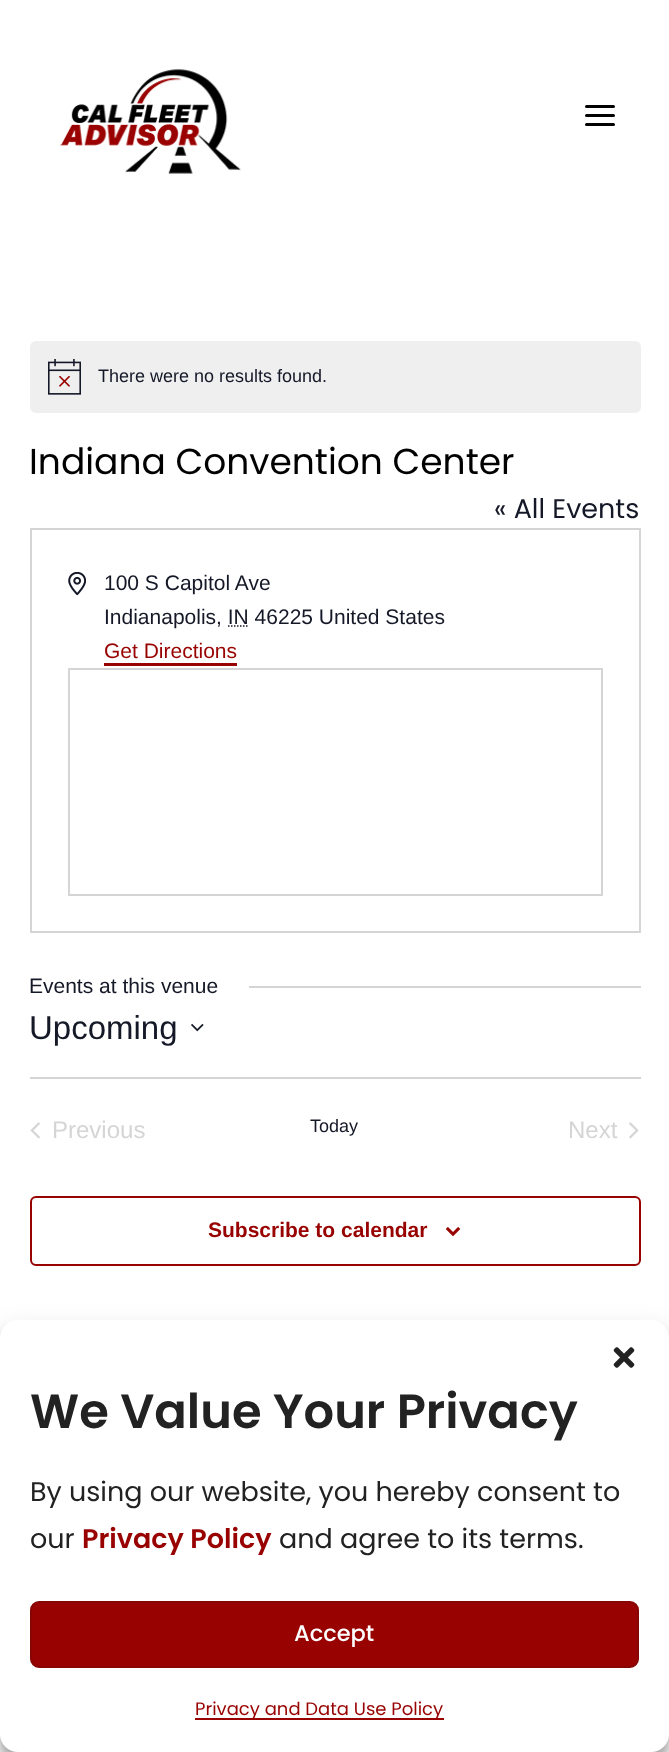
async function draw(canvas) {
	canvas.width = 669;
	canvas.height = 1752;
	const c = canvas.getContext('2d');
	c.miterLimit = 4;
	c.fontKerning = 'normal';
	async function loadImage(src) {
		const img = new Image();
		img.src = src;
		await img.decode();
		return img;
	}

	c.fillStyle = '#fff';
	c.fillRect(0, 0, 669, 1752);
	c.drawImage(await loadImage('img1.png'), 60, 69, 181, 105);
	c.fillStyle = '#000';
	c.beginPath();
	c.roundRect(585, 114, 30, 3, 1.5);
	c.fill();
	c.beginPath();
	c.roundRect(585, 105, 30, 3, 1.5);
	c.fill();
	c.beginPath();
	c.roundRect(585, 123, 30, 3, 1.5);
	c.fill();
	c.fillStyle = '#efeff0';
	c.beginPath();
	c.roundRect(30, 341, 611, 72, 6);
	c.fill();
	c.drawImage(await loadImage('img2.png'), 48, 359, 33, 36);
	c.font = '18px Liberation Sans';
	c.fillStyle = '#141827';
	c.fillText('There were no results found.', 98, 382);
	c.font = '36px Poppins';
	c.fillStyle = '#000';
	c.fillText('Indiana Convention Center', 29, 474);
	c.font = '27px Poppins';
	c.fillStyle = '#141827';
	c.fillText('« All Events', 494, 518);
	c.strokeStyle = '#d5d5d5';
	c.lineWidth = 2;
	c.strokeRect(31, 529, 609, 403);
	c.drawImage(await loadImage('img3.png'), 68, 572, 18, 24);
	c.font = '21px Liberation Sans';
	c.fillText('100 S Capitol Ave', 104, 590);
	c.fillText('Indianapolis, IN 46225 United States', 104, 624);
	c.beginPath();
	c.moveTo(228, 626);
	c.lineTo(249, 626);
	c.strokeStyle = '#141827';
	c.lineWidth = 1.5;
	c.setLineDash([1.5, 1.5]);
	c.stroke();
	c.fillStyle = '#980200';
	c.fillText('Get Directions', 104, 658);
	c.fillRect(104, 663, 133, 3);
	c.strokeStyle = '#d5d5d5';
	c.lineWidth = 2;
	c.setLineDash([]);
	c.strokeRect(69, 669, 533, 226);
	c.fillStyle = '#141827';
	c.fillText('Events at this venue', 29, 993);
	c.fillStyle = '#d5d5d5';
	c.fillRect(249, 986, 392, 2);
	c.font = '33px Liberation Sans';
	c.fillStyle = '#141827';
	c.fillText('Upcoming', 29, 1039);
	c.drawImage(await loadImage('img4.png'), 191, 1023, 13, 9);
	c.fillStyle = '#d5d5d5';
	c.fillRect(30, 1077, 611, 2);
	c.drawImage(await loadImage('img5.png'), 30, 1122, 10, 17);
	c.font = '24px Liberation Sans';
	c.fillText('Previous', 52, 1138);
	c.font = '18px Liberation Sans';
	c.fillStyle = '#141827';
	c.fillText('Today', 310, 1132);
	c.font = '24px Liberation Sans';
	c.fillStyle = '#d5d5d5';
	c.fillText('Next', 568, 1138);
	c.drawImage(await loadImage('img6.png'), 629, 1122, 10, 17);
	c.beginPath();
	c.roundRect(31, 1197, 609, 68, 5);
	c.strokeStyle = '#980200';
	c.stroke();
	c.font = 'bold 21px Liberation Sans';
	c.fillStyle = '#980200';
	c.fillText('Subscribe to calendar', 208, 1237);
	c.drawImage(await loadImage('img7.png'), 446, 1227, 15, 9);
	c.fillStyle = '#0000003b';
	c.filter = 'blur(4.5px)';
	c.beginPath();
	c.roundRect(0, 1329, 669, 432, 18);
	c.fill();
	c.filter = 'none';
	c.fillStyle = '#00000030';
	c.filter = 'blur(15px)';
	c.beginPath();
	c.roundRect(0, 1335, 669, 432, 18);
	c.fill();
	c.filter = 'none';
	c.fillStyle = '#fff';
	c.beginPath();
	c.roundRect(0, 1320, 669, 432, 18);
	c.fill();
	c.drawImage(await loadImage('img8.png'), 613, 1347, 22, 21);
	c.font = '600 48px Poppins';
	c.fillStyle = '#222';
	c.fillText('We Value Your Privacy', 30, 1428);
	c.font = '27px Poppins';
	c.fillText('By using our website, you hereby consent to', 30, 1501);
	c.fillText('our', 30, 1548);
	c.font = '600 27px Poppins';
	c.fillStyle = '#980200';
	c.fillText('Privacy Policy', 82, 1548);
	c.font = '27px Poppins';
	c.fillStyle = '#222';
	c.fillText('and agree to its terms.', 279, 1548);
	c.fillStyle = '#980200';
	c.beginPath();
	c.roundRect(31, 1602, 607, 65, 8);
	c.fill();
	c.strokeStyle = '#870502';
	c.stroke();
	c.font = '500 22.5px Poppins';
	c.fillStyle = '#fff';
	c.fillText('Accept', 294, 1641);
	c.fillStyle = '#980200';
	c.fillRect(195, 1718, 249, 2);
	c.font = '18px Poppins';
	c.fillText('Privacy and Data Use Policy', 195, 1715);
}

draw(document.querySelector('canvas'));
